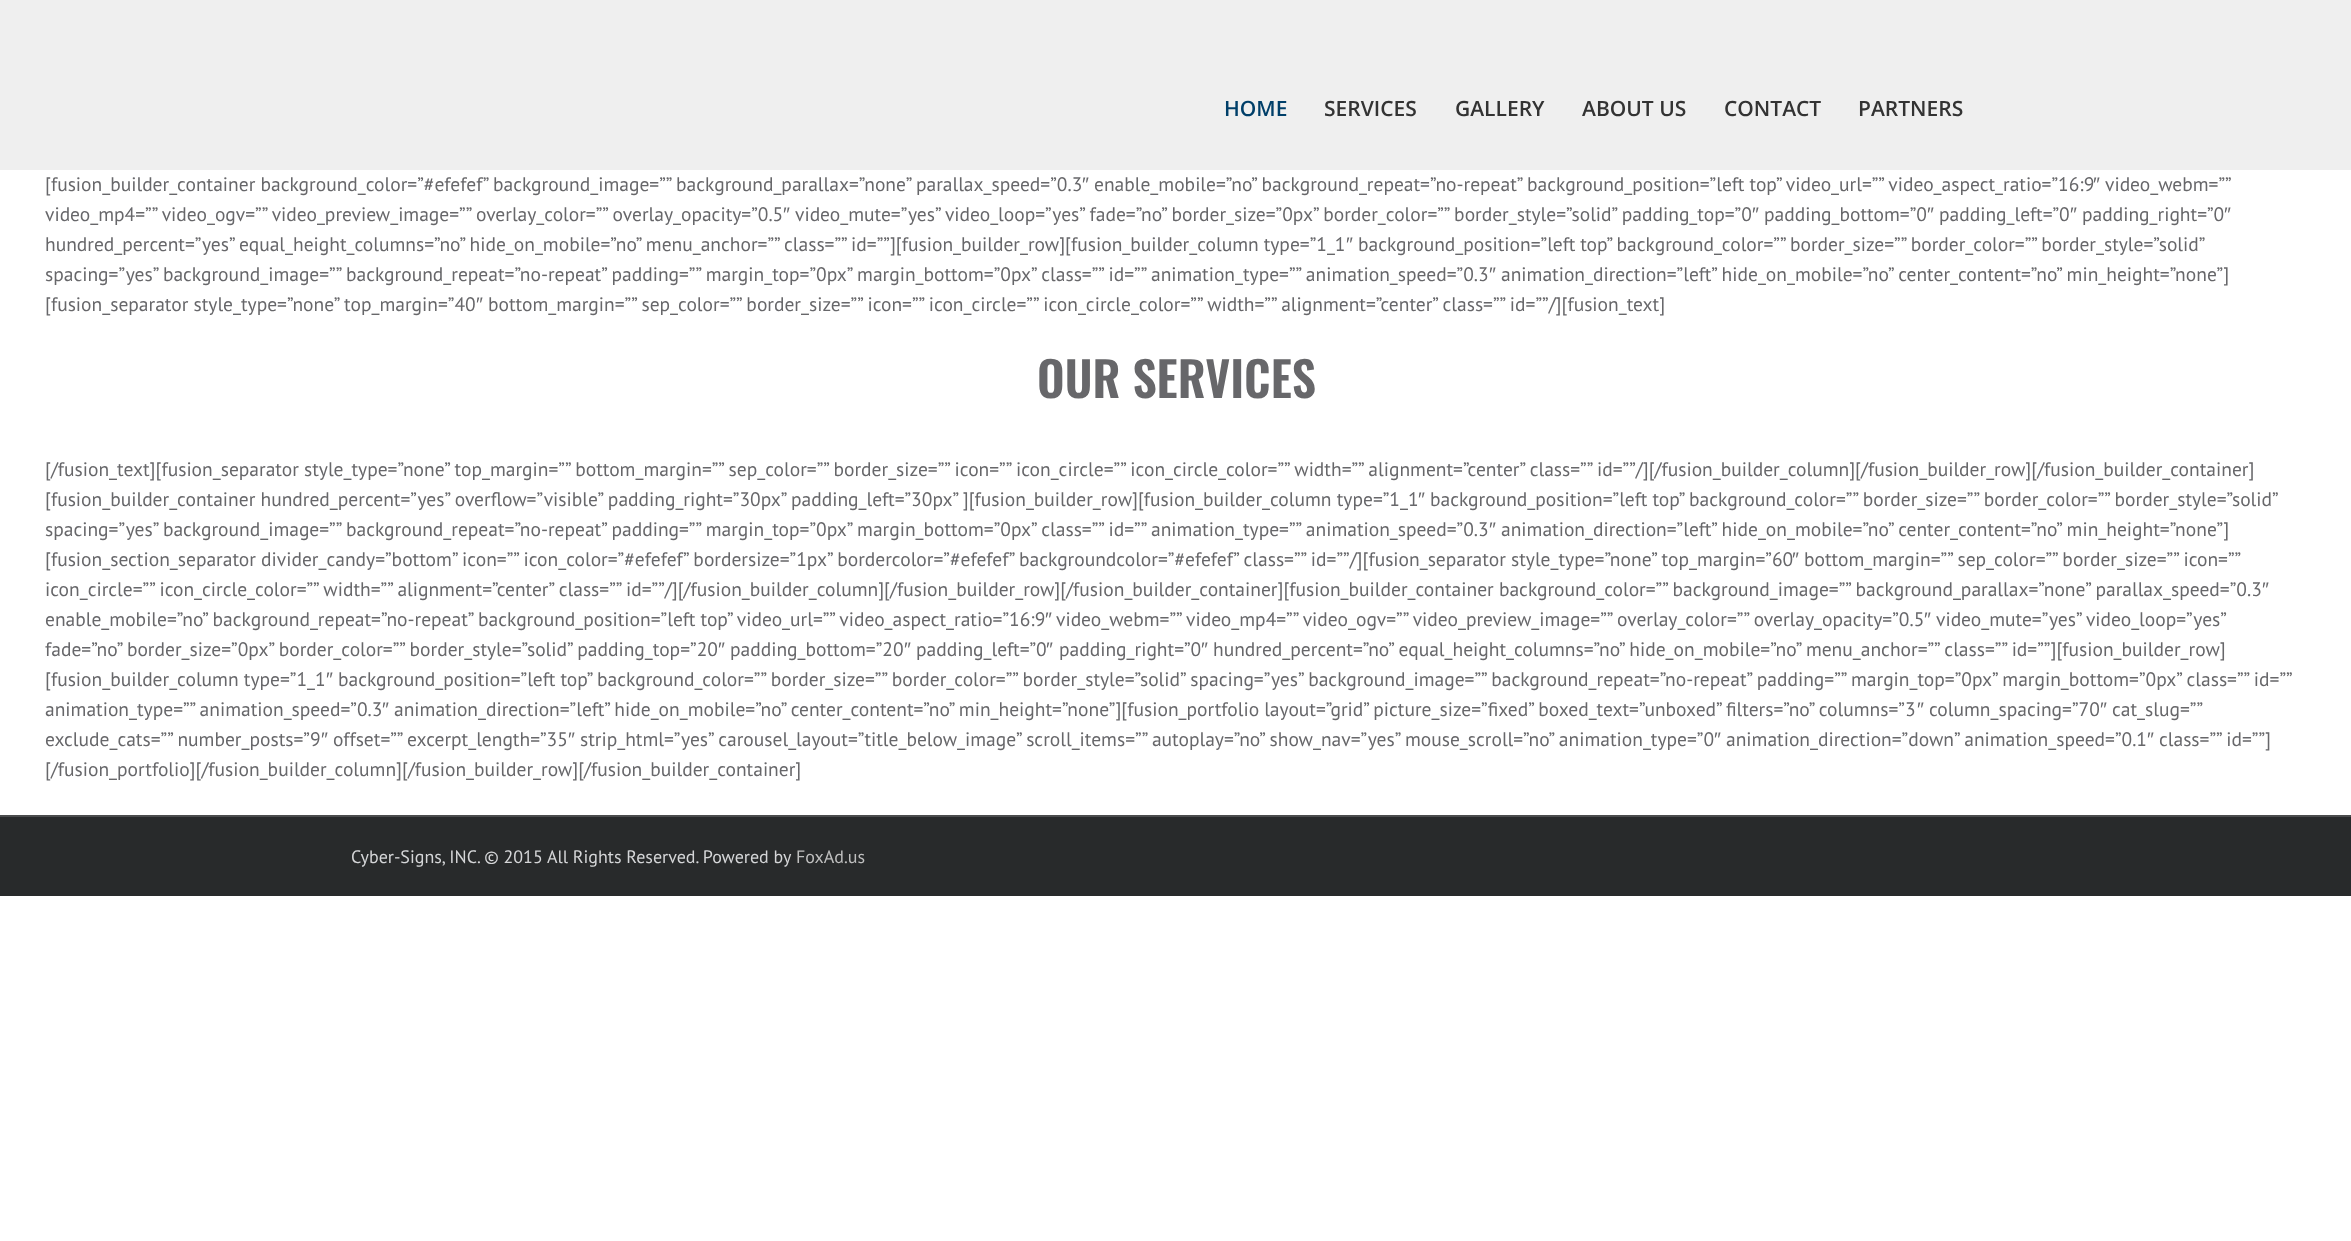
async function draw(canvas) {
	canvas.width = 2351;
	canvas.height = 1241;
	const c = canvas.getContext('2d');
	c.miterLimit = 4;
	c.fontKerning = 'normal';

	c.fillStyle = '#fff';
	c.fillRect(0, 0, 2351, 1241);
	c.fillStyle = '#efefef';
	c.fillRect(0, 0, 2351, 170);
	c.font = '600 21px Open Sans';
	c.fillStyle = '#003f69';
	c.fillText('HOME', 1224, 116);
	c.fillStyle = '#333';
	for (const [text, x, y] of [
		['SERVICES', 1324, 116],
		['GALLERY', 1455, 116],
		['ABOUT US', 1582, 116],
		['CONTACT', 1724, 116],
		['PARTNERS', 1858, 116],
	]) {
		c.fillText(text, x, y);
	}
	c.font = '19.5px PT Sans';
	c.fillStyle = '#67676a';
	c.fillText('[fusion_builder_container background_color=”#efefef” background_image=”” background_parallax=”none” parallax_speed=”0.3', 45, 191);
	c.font = '19.5px Liberation Sans';
	c.fillText('″', 1082, 191);
	c.font = '19.5px PT Sans';
	c.fillText('enable_mobile=”no” background_repeat=”no-repeat” background_position=”left top” video_url=”” video_aspect_ratio=”16:9', 1094, 191);
	c.font = '19.5px Liberation Sans';
	c.fillText('″', 2093, 191);
	c.font = '19.5px PT Sans';
	c.fillText('video_webm=””', 2105, 191);
	c.fillText('video_mp4=”” video_ogv=”” video_preview_image=”” overlay_color=”” overlay_opacity=”0.5', 45, 221);
	c.font = '19.5px Liberation Sans';
	c.fillText('″', 783, 221);
	c.font = '19.5px PT Sans';
	c.fillText('video_mute=”yes” video_loop=”yes” fade=”no” border_size=”0px” border_color=”” border_style=”solid” padding_top=”0', 795, 221);
	c.font = '19.5px Liberation Sans';
	c.fillText('″', 1752, 221);
	c.font = '19.5px PT Sans';
	c.fillText('padding_bottom=”0', 1764, 221);
	c.font = '19.5px Liberation Sans';
	c.fillText('″', 1927, 221);
	c.font = '19.5px PT Sans';
	c.fillText('padding_left=”0', 1939, 221);
	c.font = '19.5px Liberation Sans';
	c.fillText('″', 2070, 221);
	c.font = '19.5px PT Sans';
	c.fillText('padding_right=”0', 2082, 221);
	c.font = '19.5px Liberation Sans';
	c.fillText('″', 2224, 221);
	c.wordSpacing = '-0.25px';
	c.font = '19.5px PT Sans';
	c.fillText('hundred_percent=”yes” equal_height_columns=”no” hide_on_mobile=”no” menu_anchor=”” class=”” id=””][fusion_builder_row][fusion_builder_column type=”1_1', 45, 251);
	c.wordSpacing = '0px';
	c.font = '19.5px Liberation Sans';
	c.fillText('″', 1346, 251);
	c.wordSpacing = '-0.25px';
	c.font = '19.5px PT Sans';
	c.fillText('background_position=”left top” background_color=”” border_size=”” border_color=”” border_style=”solid”', 1358, 251);
	c.wordSpacing = '0px';
	c.fillText('spacing=”yes” background_image=”” background_repeat=”no-repeat” padding=”” margin_top=”0px” margin_bottom=”0px” class=”” id=”” animation_type=”” animation_speed=”0.3', 45, 281);
	c.font = '19.5px Liberation Sans';
	c.fillText('″', 1489, 281);
	c.font = '19.5px PT Sans';
	c.fillText('animation_direction=”left” hide_on_mobile=”no” center_content=”no” min_height=”none”]', 1501, 281);
	c.fillText('[fusion_separator style_type=”none” top_margin=”40', 45, 311);
	c.font = '19.5px Liberation Sans';
	c.fillText('″', 476, 311);
	c.font = '19.5px PT Sans';
	c.fillText('bottom_margin=”” sep_color=”” border_size=”” icon=”” icon_circle=”” icon_circle_color=”” width=”” alignment=”center” class=”” id=””/][fusion_text]', 488, 311);
	c.font = '600 48px Oswald';
	c.fillText('OUR SERVICES', 1037, 398);
	c.font = '19.5px PT Sans';
	for (const [text, x, y] of [
		['[/fusion_text][fusion_separator style_type=”none” top_margin=”” bottom_margin=”” sep_color=”” border_size=”” icon=”” icon_circle=”” icon_circle_color=”” width=”” alignment=”center” class=”” id=””/][/fusion_builder_column][/fusion_builder_row][/fusion_builder_container]', 45, 476],
		['[fusion_builder_container hundred_percent=”yes” overflow=”visible” padding_right=”30px”', 45, 506],
		['padding_left=”30px” ][fusion_builder_row][fusion_builder_column type=”1_1', 791, 506],
	]) {
		c.fillText(text, x, y);
	}
	c.font = '19.5px Liberation Sans';
	c.fillText('″', 1418, 506);
	c.font = '19.5px PT Sans';
	c.fillText('background_position=”left top” background_color=”” border_size=”” border_color=”” border_style=”solid”', 1430, 506);
	c.fillText('spacing=”yes” background_image=”” background_repeat=”no-repeat” padding=”” margin_top=”0px” margin_bottom=”0px” class=”” id=”” animation_type=”” animation_speed=”0.3', 45, 536);
	c.font = '19.5px Liberation Sans';
	c.fillText('″', 1489, 536);
	c.font = '19.5px PT Sans';
	c.fillText('animation_direction=”left” hide_on_mobile=”no” center_content=”no” min_height=”none”]', 1501, 536);
	c.fillText('[fusion_section_separator divider_candy=”bottom” icon=”” icon_color=”#efefef” bordersize=”1px” bordercolor=”#efefef” backgroundcolor=”#efefef” class=”” id=””/][fusion_separator style_type=”none” top_margin=”60', 45, 566);
	c.font = '19.5px Liberation Sans';
	c.fillText('″', 1792, 566);
	c.font = '19.5px PT Sans';
	c.fillText('bottom_margin=”” sep_color=”” border_size=”” icon=””', 1804, 566);
	c.fillText('icon_circle=”” icon_circle_color=”” width=”” alignment=”center” class=”” id=””/][/fusion_builder_column][/fusion_builder_row][/fusion_builder_container][fusion_builder_container background_color=”” background_image=”” background_parallax=”none” parallax_speed=”0.3', 45, 596);
	c.font = '19.5px Liberation Sans';
	c.fillText('″', 2262, 596);
	c.font = '19.5px PT Sans';
	c.fillText('enable_mobile=”no” background_repeat=”no-repeat” background_position=”left top” video_url=”” video_aspect_ratio=”16:9', 45, 626);
	c.font = '19.5px Liberation Sans';
	c.fillText('″', 1045, 626);
	c.font = '19.5px PT Sans';
	c.fillText('video_webm=”” video_mp4=”” video_ogv=”” video_preview_image=”” overlay_color=”” overlay_opacity=”0.5', 1056, 626);
	c.font = '19.5px Liberation Sans';
	c.fillText('″', 1924, 626);
	c.font = '19.5px PT Sans';
	c.fillText('video_mute=”yes” video_loop=”yes”', 1936, 626);
	c.fillText('fade=”no” border_size=”0px” border_color=”” border_style=”solid” padding_top=”20', 45, 656);
	c.font = '19.5px Liberation Sans';
	c.fillText('″', 718, 656);
	c.font = '19.5px PT Sans';
	c.fillText('padding_bottom=”20', 730, 656);
	c.font = '19.5px Liberation Sans';
	c.fillText('″', 904, 656);
	c.font = '19.5px PT Sans';
	c.fillText('padding_left=”0', 916, 656);
	c.font = '19.5px Liberation Sans';
	c.fillText('″', 1046, 656);
	c.font = '19.5px PT Sans';
	c.fillText('padding_right=”0', 1059, 656);
	c.font = '19.5px Liberation Sans';
	c.fillText('″', 1201, 656);
	c.font = '19.5px PT Sans';
	c.fillText('hundred_percent=”no” equal_height_columns=”no” hide_on_mobile=”no” menu_anchor=”” class=”” id=””][fusion_builder_row]', 1213, 656);
	c.fillText('[fusion_builder_column type=”1_1', 45, 686);
	c.font = '19.5px Liberation Sans';
	c.fillText('″', 326, 686);
	c.font = '19.5px PT Sans';
	c.fillText('background_position=”left top” background_color=”” border_size=”” border_color=”” border_style=”solid” spacing=”yes” background_image=”” background_repeat=”no-repeat” padding=”” margin_top=”0px” margin_bottom=”0px” class=”” id=””', 338, 686);
	c.wordSpacing = '-0.25px';
	c.fillText('animation_type=”” animation_speed=”0.3', 45, 716);
	c.wordSpacing = '0px';
	c.font = '19.5px Liberation Sans';
	c.fillText('″', 382, 716);
	c.wordSpacing = '-0.25px';
	c.font = '19.5px PT Sans';
	c.fillText('animation_direction=”left” hide_on_mobile=”no” center_content=”no” min_height=”none”][fusion_portfolio layout=”grid” picture_size=”fixed” boxed_text=”unboxed” filters=”no” columns=”3', 394, 716);
	c.wordSpacing = '0px';
	c.font = '19.5px Liberation Sans';
	c.fillText('″', 1917, 716);
	c.font = '19.5px PT Sans';
	c.fillText('column_spacing=”70', 1929, 716);
	c.font = '19.5px Liberation Sans';
	c.fillText('″', 2100, 716);
	c.font = '19.5px PT Sans';
	c.fillText('cat_slug=””', 2112, 716);
	c.fillText('exclude_cats=”” number_posts=”9', 45, 746);
	c.font = '19.5px Liberation Sans';
	c.fillText('″', 321, 746);
	c.font = '19.5px PT Sans';
	c.fillText('offset=”” excerpt_length=”35', 333, 746);
	c.font = '19.5px Liberation Sans';
	c.fillText('″', 568, 746);
	c.font = '19.5px PT Sans';
	c.fillText('strip_html=”yes” carousel_layout=”title_below_image” scroll_items=”” autoplay=”no” show_nav=”yes” mouse_scroll=”no” animation_type=”0', 580, 746);
	c.font = '19.5px Liberation Sans';
	c.fillText('″', 1714, 746);
	c.font = '19.5px PT Sans';
	c.fillText('animation_direction=”down” animation_speed=”0.1', 1726, 746);
	c.font = '19.5px Liberation Sans';
	c.fillText('″', 2147, 746);
	c.font = '19.5px PT Sans';
	c.fillText('class=”” id=””]', 2159, 746);
	c.fillText('[/fusion_portfolio][/fusion_builder_column][/fusion_builder_row][/fusion_builder_container]', 45, 776);
	c.fillStyle = '#282a2b';
	c.fillRect(0, 817, 2351, 79);
	c.fillStyle = '#4b4c4d';
	c.fillRect(0, 815, 2351, 2);
	c.font = '18px PT Sans';
	c.fillStyle = '#d5d6d8';
	c.fillText('Cyber-Signs, INC. © 2015 All Rights Reserved. Powered by', 351, 863);
	c.fillStyle = '#bfbfbf';
	c.fillText('FoxAd.us', 796, 863);
}

draw(document.querySelector('canvas'));
